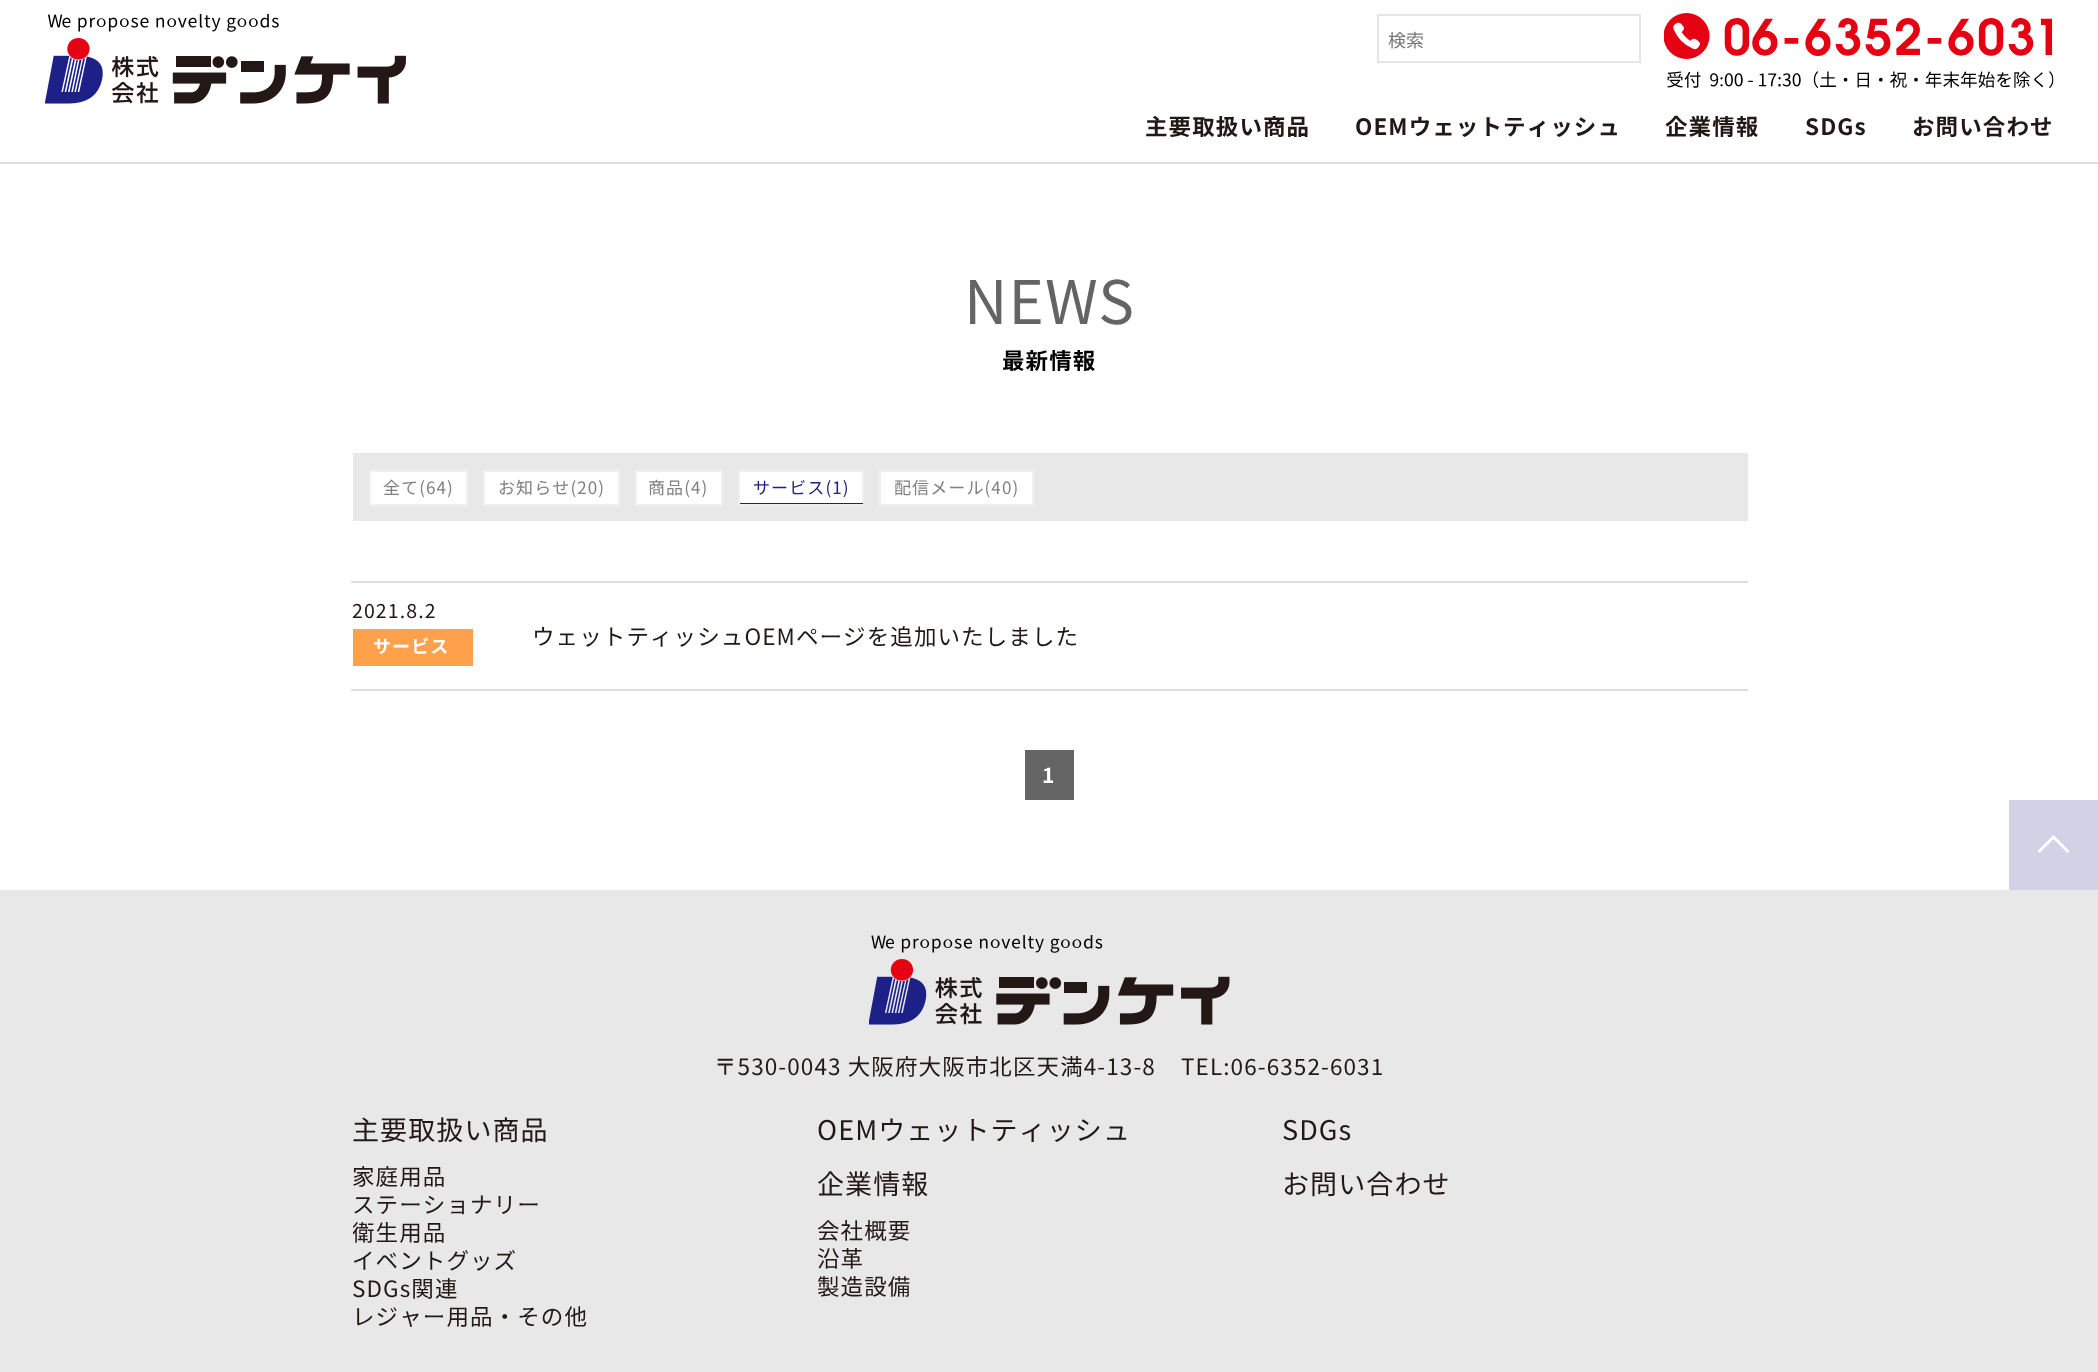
async function draw(canvas) {
	canvas.width = 2098;
	canvas.height = 1372;
	const c = canvas.getContext('2d');
	c.miterLimit = 4;
	c.fontKerning = 'normal';
	async function loadImage(src) {
		const img = new Image();
		img.src = src;
		await img.decode();
		return img;
	}

	c.fillStyle = '#fff';
	c.fillRect(0, 0, 2098, 1372);
	c.fillStyle = '#ddd';
	c.fillRect(0, 162, 2098, 2);
	c.drawImage(await loadImage('img1.png'), 45, 14, 361, 90);
	c.strokeStyle = '#e6e6e6';
	c.lineWidth = 2;
	c.strokeRect(1378, 15, 262, 47);
	c.font = '18px Noto Sans JP';
	c.fillStyle = '#757575';
	c.fillText('検索', 1388, 47);
	c.drawImage(await loadImage('img2.png'), 1664, 13, 390, 75);
	c.letterSpacing = '1.1px';
	c.font = 'bold 22.5px Noto Sans JP';
	c.fillStyle = '#231815';
	for (const [text, x, y] of [
		['主要取扱い商品', 1145, 135],
		['OEMウェットティッシュ', 1355, 135],
		['企業情報', 1665, 135],
		['SDGs', 1805, 135],
		['お問い合わせ', 1912, 135],
	]) {
		c.fillText(text, x, y);
	}
	c.font = '60px Noto Sans JP';
	c.fillStyle = '#646464';
	c.fillText('NEWS', 964, 324);
	c.font = 'bold 22.5px Noto Sans JP';
	c.fillStyle = '#000';
	c.fillText('最新情報', 1002, 369);
	c.fillStyle = '#e8e8e8';
	c.fillRect(353, 453, 1395, 68);
	c.fillStyle = '#fff';
	c.beginPath();
	c.rect(370, 471, 97, 34);
	c.fill();
	c.strokeStyle = '#f0f0f0';
	c.stroke();
	c.font = '17px Noto Sans JP';
	c.fillStyle = '#808080';
	c.fillText('全て(64)', 383, 494);
	c.fillStyle = '#fff';
	c.beginPath();
	c.rect(484, 471, 135, 34);
	c.fill();
	c.stroke();
	c.fillStyle = '#808080';
	c.fillText('お知らせ(20)', 498, 494);
	c.fillStyle = '#fff';
	c.beginPath();
	c.rect(636, 471, 86, 34);
	c.fill();
	c.stroke();
	c.fillStyle = '#808080';
	c.fillText('商品(4)', 648, 494);
	c.fillStyle = '#fff';
	c.fillRect(740, 472, 122, 31);
	c.strokeRect(739, 471, 124, 34);
	c.fillStyle = '#1d2087';
	c.fillText('サービス(1)', 753, 494);
	c.fillRect(740, 503, 123, 1);
	c.fillStyle = '#fff';
	c.beginPath();
	c.rect(880, 471, 153, 34);
	c.fill();
	c.stroke();
	c.fillStyle = '#808080';
	c.fillText('配信メール(40)', 894, 494);
	c.fillStyle = '#ddd';
	c.fillRect(351, 581, 1397, 2);
	c.fillRect(351, 689, 1397, 2);
	c.font = '19.5px Noto Sans JP';
	c.fillStyle = '#231815';
	c.fillText('2021.8.2', 352, 618);
	c.fillStyle = '#ffa04b';
	c.fillRect(353, 629, 120, 37);
	c.font = 'bold 18px Noto Sans JP';
	c.fillStyle = '#fff';
	c.fillText('サービス', 373, 653);
	c.font = '22.5px Noto Sans JP';
	c.fillStyle = '#231815';
	c.fillText('ウェットティッシュOEMページを追加いたしました', 532, 645);
	c.fillStyle = '#646464';
	c.fillRect(1025, 750, 49, 50);
	c.font = 'bold 21px Noto Sans JP';
	c.fillStyle = '#fff';
	c.fillText('1', 1042, 783);
	c.fillStyle = '#e8e8e8';
	c.fillRect(0, 890, 2098, 482);
	c.fillStyle = '#d2d2e7';
	c.fillRect(2009, 800, 89, 90);
	c.beginPath();
	c.moveTo(2068.5, 852);
	c.lineTo(2053.5, 837);
	c.lineTo(2038.5, 852);
	c.strokeStyle = '#fff';
	c.lineWidth = 3;
	c.stroke();
	c.drawImage(await loadImage('img3.png'), 869, 935, 361, 90);
	c.font = '22.5px Noto Sans JP';
	c.fillStyle = '#231815';
	c.fillText('〒530-0043 大阪府大阪市北区天満4-13-8', 714, 1075);
	c.fillText('TEL:06-6352-6031', 1181, 1075);
	c.font = '27px Noto Sans JP';
	c.fillText('主要取扱い商品', 352, 1140);
	c.font = '22.5px Noto Sans JP';
	c.fillText('家庭用品', 352, 1185);
	c.fillText('ステーショナリー', 352, 1213);
	c.save();
	c.beginPath();
	c.rect(353, 1218, 463, 29);
	c.clip();
	c.fillText('衛生用品', 352, 1241);
	c.restore();
	for (const [text, x, y] of [
		['イベントグッズ', 352, 1269],
		['SDGs関連', 352, 1297],
		['レジャー用品・その他', 352, 1325],
	]) {
		c.fillText(text, x, y);
	}
	c.font = '27px Noto Sans JP';
	c.fillText('OEMウェットティッシュ', 817, 1140);
	c.fillText('企業情報', 817, 1194);
	c.font = '22.5px Noto Sans JP';
	for (const [text, x, y] of [
		['会社概要', 817, 1239],
		['沿革', 817, 1267],
		['製造設備', 817, 1295],
	]) {
		c.fillText(text, x, y);
	}
	c.font = '27px Noto Sans JP';
	c.fillText('SDGs', 1282, 1140);
	c.fillText('お問い合わせ', 1282, 1194);
}

draw(document.querySelector('canvas'));
